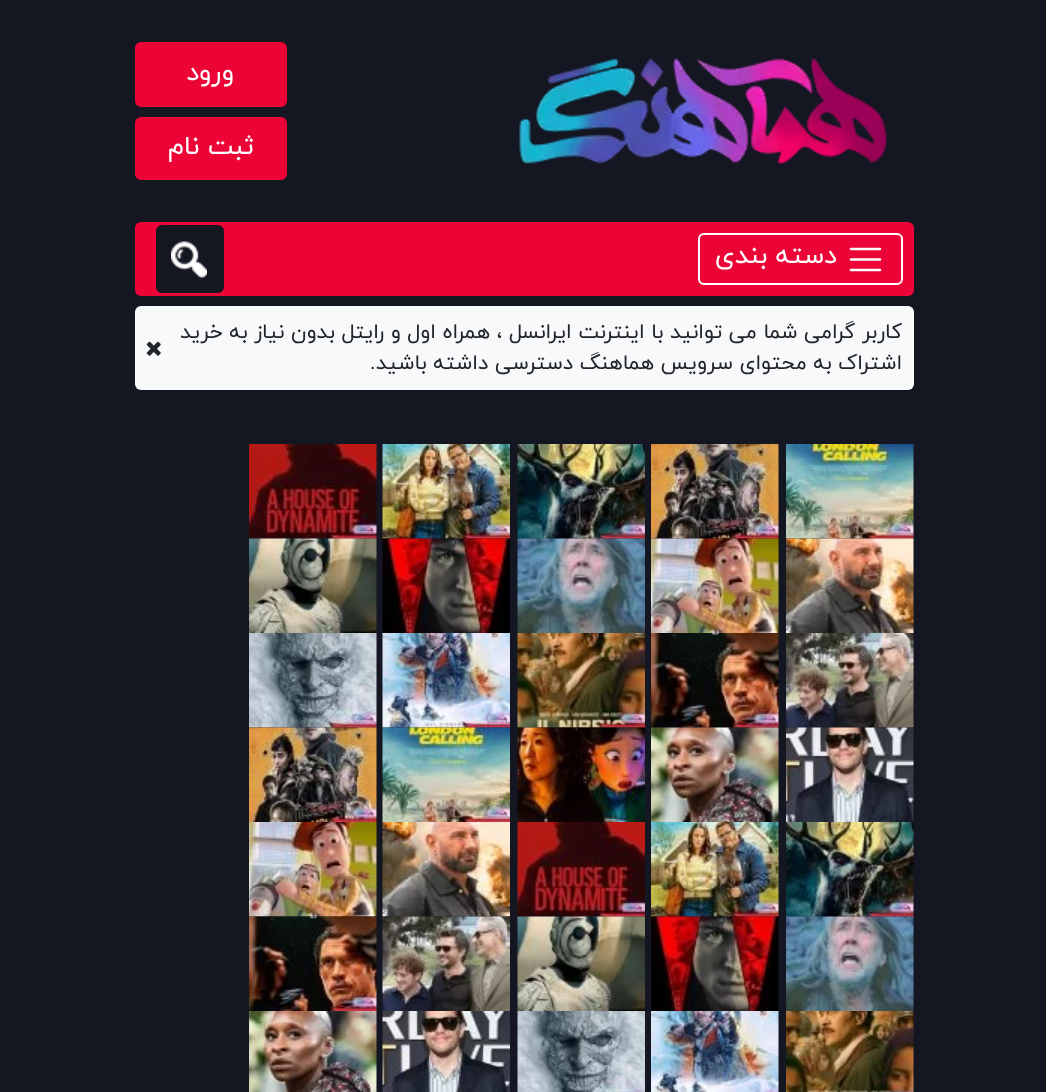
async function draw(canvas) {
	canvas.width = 1046;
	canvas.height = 1092;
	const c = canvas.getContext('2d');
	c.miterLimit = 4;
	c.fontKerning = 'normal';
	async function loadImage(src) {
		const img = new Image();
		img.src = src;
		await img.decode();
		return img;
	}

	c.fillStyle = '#141622';
	c.fillRect(0, 0, 1046, 1092);
	c.drawImage(await loadImage('img1.png'), 519, 58, 368, 107);
	c.fillStyle = '#ec0437';
	c.beginPath();
	c.roundRect(136, 43, 150, 63, 5);
	c.fill();
	c.strokeStyle = '#ec0437';
	c.lineWidth = 2;
	c.stroke();
	c.direction = 'rtl';
	c.font = '26.25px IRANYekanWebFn';
	c.fillStyle = '#fff';
	c.fillText('ورود', 234, 80);
	c.fillStyle = '#ec0437';
	c.beginPath();
	c.roundRect(136, 118, 150, 61, 5);
	c.fill();
	c.stroke();
	c.fillStyle = '#fff';
	c.fillText('ثبت نام', 254, 154);
	c.fillStyle = '#ec0437';
	c.beginPath();
	c.roundRect(135, 222, 779, 74, 6);
	c.fill();
	c.beginPath();
	c.roundRect(699, 234, 203, 50, 5);
	c.strokeStyle = '#fff';
	c.stroke();
	c.beginPath();
	c.moveTo(851, 249);
	c.lineTo(880, 249);
	c.moveTo(851, 259.5);
	c.lineTo(880, 259.5);
	c.moveTo(851, 270);
	c.lineTo(880, 270);
	c.lineWidth = 2.6;
	c.lineCap = 'round';
	c.stroke();
	c.fillStyle = '#fff';
	c.fillText('دسته بندی', 837, 263);
	c.fillStyle = '#141622';
	c.beginPath();
	c.roundRect(156, 225, 68, 68, 6);
	c.fill();
	c.drawImage(await loadImage('img2.png'), 171, 241, 36, 37);
	c.fillStyle = '#f8f9fa';
	c.beginPath();
	c.roundRect(135, 306, 779, 84, 6);
	c.fill();
	c.font = '21px IRANYekanWebFn';
	c.fillStyle = '#212529';
	c.fillText('کاربر گرامی شما می توانید با اینترنت ایرانسل ، همراه اول و رایتل بدون نیاز به خرید', 902, 338);
	c.fillText('اشتراک به محتوای سرویس هماهنگ دسترسی داشته باشید.', 902, 369);
	c.drawImage(await loadImage('img3.png'), 146, 341, 15, 15);
	c.drawImage(await loadImage('img4.png'), 786, 444, 128, 95);
	c.drawImage(await loadImage('img5.png'), 651, 444, 128, 95);
	c.drawImage(await loadImage('img6.png'), 517, 444, 128, 95);
	c.drawImage(await loadImage('img7.png'), 382, 444, 128, 95);
	c.drawImage(await loadImage('img8.png'), 249, 444, 128, 95);
	c.drawImage(await loadImage('img9.png'), 786, 538, 128, 95);
	c.drawImage(await loadImage('img10.png'), 651, 538, 128, 95);
	c.drawImage(await loadImage('img11.png'), 517, 538, 128, 95);
	c.drawImage(await loadImage('img12.png'), 382, 538, 128, 95);
	c.drawImage(await loadImage('img13.png'), 249, 538, 128, 95);
	c.drawImage(await loadImage('img14.png'), 786, 633, 128, 95);
	c.drawImage(await loadImage('img15.png'), 651, 633, 128, 95);
	c.drawImage(await loadImage('img16.png'), 517, 633, 128, 95);
	c.drawImage(await loadImage('img17.png'), 382, 633, 128, 95);
	c.drawImage(await loadImage('img18.png'), 249, 633, 128, 95);
	c.drawImage(await loadImage('img19.png'), 786, 727, 128, 95);
	c.drawImage(await loadImage('img20.png'), 651, 727, 128, 95);
	c.drawImage(await loadImage('img21.png'), 517, 727, 128, 95);
	c.drawImage(await loadImage('img22.png'), 382, 727, 128, 95);
	c.drawImage(await loadImage('img23.png'), 249, 727, 128, 95);
	c.drawImage(await loadImage('img24.png'), 786, 822, 128, 95);
	c.drawImage(await loadImage('img25.png'), 651, 822, 128, 95);
	c.drawImage(await loadImage('img26.png'), 517, 822, 128, 95);
	c.drawImage(await loadImage('img27.png'), 382, 822, 128, 95);
	c.drawImage(await loadImage('img28.png'), 249, 822, 128, 95);
	c.drawImage(await loadImage('img29.png'), 786, 916, 128, 95);
	c.drawImage(await loadImage('img30.png'), 651, 916, 128, 95);
	c.drawImage(await loadImage('img31.png'), 517, 916, 128, 95);
	c.drawImage(await loadImage('img32.png'), 382, 916, 128, 95);
	c.drawImage(await loadImage('img33.png'), 249, 916, 128, 95);
	c.drawImage(await loadImage('img34.png'), 786, 1011, 128, 81);
	c.drawImage(await loadImage('img35.png'), 651, 1011, 128, 81);
	c.drawImage(await loadImage('img36.png'), 517, 1011, 128, 81);
	c.drawImage(await loadImage('img37.png'), 382, 1011, 128, 81);
	c.drawImage(await loadImage('img38.png'), 249, 1011, 128, 81);
}

draw(document.querySelector('canvas'));
